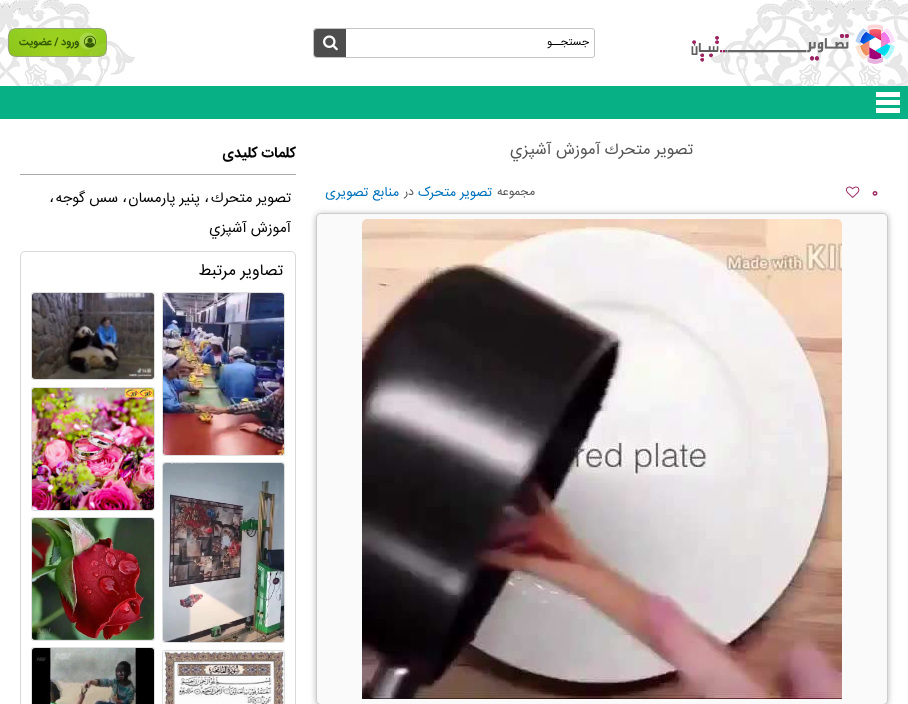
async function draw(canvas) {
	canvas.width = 908;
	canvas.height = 704;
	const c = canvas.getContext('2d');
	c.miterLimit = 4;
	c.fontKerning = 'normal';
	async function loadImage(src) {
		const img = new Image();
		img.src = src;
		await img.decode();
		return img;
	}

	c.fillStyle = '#fff';
	c.fillRect(0, 0, 908, 704);
	c.drawImage(await loadImage('img1.png'), 711, 0, 197, 86);
	c.drawImage(await loadImage('img2.png'), 0, 0, 135, 86);
	c.drawImage(await loadImage('img3.png'), 691, 21, 207, 46);
	c.beginPath();
	c.roundRect(313.5, 28.5, 281, 29, 2.5);
	c.strokeStyle = '#c4c4c4';
	c.stroke();
	c.direction = 'rtl';
	c.font = '11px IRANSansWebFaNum';
	c.fillStyle = '#000';
	c.fillText('جستجــو', 589, 45);
	c.fillStyle = '#4d4d4d';
	c.beginPath();
	c.roundRect(314, 29, 32, 28, [3, 0, 0, 3]);
	c.fill();
	c.drawImage(await loadImage('img4.png'), 323, 35, 15, 16);
	c.drawImage(await loadImage('img5.png'), 9, 29, 98, 28);
	c.beginPath();
	c.roundRect(8.5, 28.5, 98, 28, 7.5);
	c.strokeStyle = '#96a37b';
	c.stroke();
	c.drawImage(await loadImage('img6.png'), 84, 35, 12, 13);
	c.font = 'bold 10.5px IRANSansWebFaNum';
	c.fillStyle = '#345903';
	c.fillText('ورود / عضویت', 79, 45);
	c.fillStyle = '#07b085';
	c.fillRect(0, 86, 908, 33);
	c.drawImage(await loadImage('img7.png'), 876, 92, 24, 21);
	c.font = '16px IRANSansWebFaNum';
	c.fillStyle = '#555';
	c.fillText('تصوير متحرك آموزش آشپزي', 693, 154);
	c.direction = 'ltr';
	c.font = 'bold 13.5px IRANSansWebFaNum';
	c.fillStyle = '#9b2361';
	c.fillText('0', 872, 196);
	c.drawImage(await loadImage('img8.png'), 846, 186, 14, 12);
	c.direction = 'rtl';
	c.font = '12px IRANSansWebFaNum';
	c.fillStyle = '#555';
	c.fillText('مجموعه', 535, 195);
	c.font = '13.5px IRANSansWebFaNum';
	c.fillStyle = '#0072bc';
	c.fillText('تصویر متحرک', 492, 196);
	c.font = '12px IRANSansWebFaNum';
	c.fillStyle = '#555';
	c.fillText('در', 414, 195);
	c.font = '13.5px IRANSansWebFaNum';
	c.fillStyle = '#0072bc';
	c.fillText('منابع تصویری', 399, 196);
	c.fillStyle = '#88888899';
	c.filter = 'blur(3px)';
	c.beginPath();
	c.roundRect(316, 214, 572, 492, 5);
	c.fill();
	c.filter = 'none';
	c.fillStyle = '#fafafa';
	c.beginPath();
	c.roundRect(316.5, 213.5, 571, 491, 4.5);
	c.fill();
	c.strokeStyle = '#ccc';
	c.stroke();
	c.drawImage(await loadImage('img9.png'), 362, 219, 480, 480);
	c.fillStyle = '#a6a9ac';
	c.fillRect(20, 174, 276, 1);
	c.font = 'bold 14.5px IRANSansWebFaNum';
	c.fillStyle = '#000';
	c.fillText('کلمات کلیدی', 296, 157);
	c.font = '14.5px IRANSansWebFaNum';
	c.fillText('تصوير متحرك', 291, 202);
	c.direction = 'ltr';
	c.font = '16px DejaVu Sans';
	c.fillText('،', 204, 202);
	c.direction = 'rtl';
	c.font = '14.5px IRANSansWebFaNum';
	c.fillText('پنير پارمسان', 200, 202);
	c.direction = 'ltr';
	c.font = '16px DejaVu Sans';
	c.fillText('،', 122, 202);
	c.direction = 'rtl';
	c.font = '14.5px IRANSansWebFaNum';
	c.fillText('سس گوجه', 118, 202);
	c.direction = 'ltr';
	c.font = '16px DejaVu Sans';
	c.fillText('،', 49, 202);
	c.direction = 'rtl';
	c.font = '14.5px IRANSansWebFaNum';
	c.fillText('آموزش آشپزي', 291, 232);
	c.beginPath();
	c.roundRect(20.5, 251.5, 275, 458, 4.5);
	c.strokeStyle = '#d8d9da';
	c.stroke();
	c.font = '16px IRANSansWebFaNum';
	c.fillText('تصاویر مرتبط', 283, 275);
	c.beginPath();
	c.roundRect(162.5, 292.5, 122, 163, 2);
	c.strokeStyle = '#dfdfdf';
	c.stroke();
	c.drawImage(await loadImage('img10.png'), 163, 293, 121, 162);
	c.beginPath();
	c.roundRect(31.5, 292.5, 123, 87, 2);
	c.stroke();
	c.drawImage(await loadImage('img11.png'), 32, 293, 122, 86);
	c.beginPath();
	c.roundRect(31.5, 387.5, 123, 123, 2);
	c.stroke();
	c.drawImage(await loadImage('img12.png'), 32, 388, 122, 122);
	c.beginPath();
	c.roundRect(162.5, 462.5, 122, 180, 2);
	c.stroke();
	c.drawImage(await loadImage('img13.png'), 163, 463, 121, 179);
	c.beginPath();
	c.roundRect(31.5, 517.5, 123, 123, 2);
	c.stroke();
	c.drawImage(await loadImage('img14.png'), 32, 518, 122, 122);
	c.beginPath();
	c.roundRect(162.5, 650.5, 122, 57, 2);
	c.stroke();
	c.drawImage(await loadImage('img15.png'), 163, 651, 121, 53);
	c.beginPath();
	c.roundRect(31.5, 647.5, 123, 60, 2);
	c.stroke();
	c.drawImage(await loadImage('img16.png'), 32, 648, 122, 56);
}

draw(document.querySelector('canvas'));
